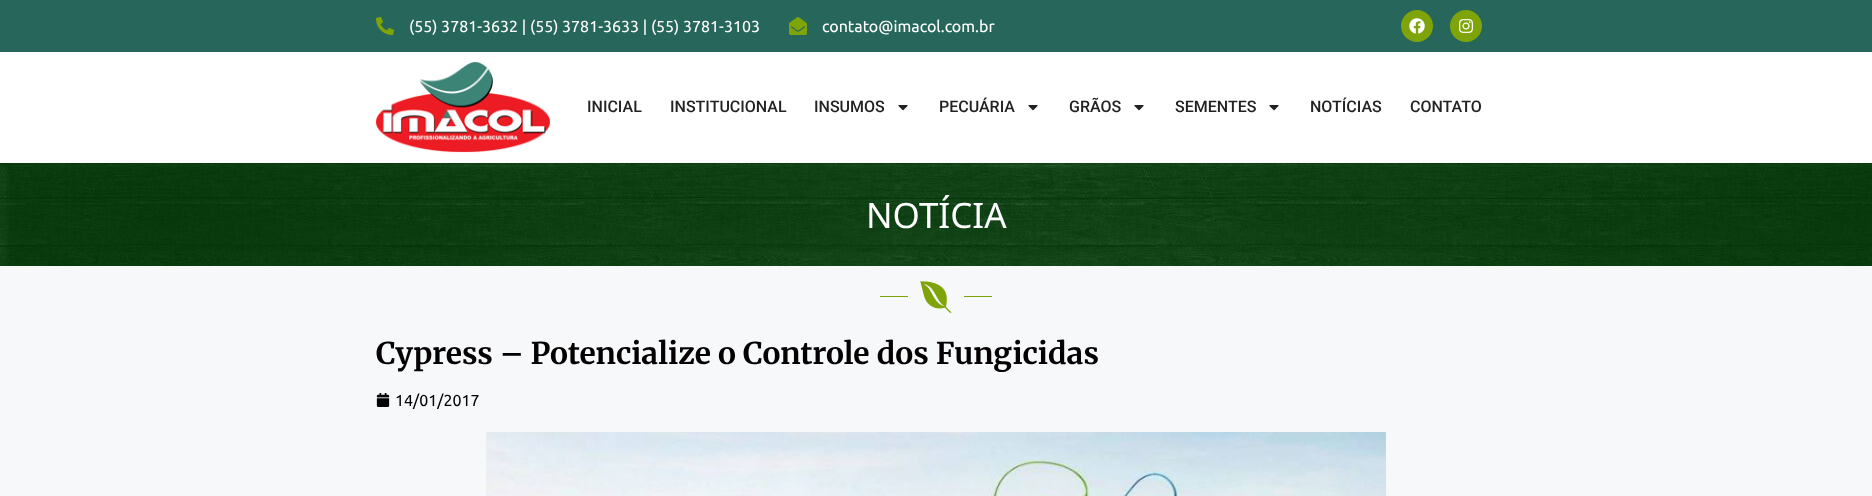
async function draw(canvas) {
	canvas.width = 1872;
	canvas.height = 496;
	const c = canvas.getContext('2d');
	c.miterLimit = 4;
	c.fontKerning = 'normal';
	async function loadImage(src) {
		const img = new Image();
		img.src = src;
		await img.decode();
		return img;
	}

	c.fillStyle = '#f7f8f9';
	c.fillRect(0, 0, 1872, 496);
	c.fillStyle = '#27675b';
	c.fillRect(0, 0, 1872, 52);
	c.drawImage(await loadImage('img1.png'), 376, 17, 18, 18);
	c.font = '16px Ubuntu';
	c.fillStyle = '#fff';
	c.fillText('(55) 3781-3632 | (55) 3781-3633 | (55) 3781-3103', 409, 32);
	c.drawImage(await loadImage('img2.png'), 789, 17, 18, 18);
	c.fillText('contato@imacol.com.br', 822, 32);
	c.fillStyle = '#7fa409';
	c.beginPath();
	c.arc(1417, 26, 16, 0, 2 * Math.PI);
	c.fill();
	c.drawImage(await loadImage('img3.png'), 1409, 18, 16, 16);
	c.beginPath();
	c.arc(1466, 26, 16, 0, 2 * Math.PI);
	c.fill();
	c.drawImage(await loadImage('img4.png'), 1459, 19, 14, 14);
	c.fillStyle = '#fff';
	c.fillRect(0, 52, 1872, 111);
	c.drawImage(await loadImage('img5.png'), 376, 62, 174, 91);
	c.font = '500 16px Roboto';
	c.fillStyle = '#222';
	for (const [text, x, y] of [
		['INICIAL', 587, 112],
		['INSTITUCIONAL', 670, 112],
		['INSUMOS', 814, 112],
	]) {
		c.fillText(text, x, y);
	}
	c.drawImage(await loadImage('img6.png'), 898, 105, 10, 6);
	c.fillText('PECUÁRIA', 939, 112);
	c.drawImage(await loadImage('img6.png'), 1028, 105, 10, 6);
	c.fillText('GRÃOS', 1069, 112);
	c.drawImage(await loadImage('img6.png'), 1134, 105, 10, 6);
	c.fillText('SEMENTES', 1175, 112);
	c.drawImage(await loadImage('img6.png'), 1269, 105, 10, 6);
	c.fillText('NOTÍCIAS', 1310, 112);
	c.fillText('CONTATO', 1410, 112);
	c.drawImage(await loadImage('img7.png'), 0, 163, 1872, 103);
	c.font = '35px Noto Sans';
	c.fillStyle = '#fff';
	c.fillText('NOTÍCIA', 866, 228);
	c.fillStyle = '#7fa409';
	c.fillRect(880, 296, 28, 1);
	c.drawImage(await loadImage('img8.png'), 920, 281, 32, 32);
	c.fillRect(964, 296, 28, 1);
	c.font = 'bold 30px Merriweather';
	c.fillStyle = '#030101';
	c.fillText('Cypress – Potencialize o Controle dos Fungicidas', 376, 364);
	c.drawImage(await loadImage('img9.png'), 376, 393, 14, 14);
	c.font = '16px Ubuntu';
	c.fillText('14/01/2017', 395, 406);
	c.drawImage(await loadImage('img10.png'), 486, 432, 900, 64);
}

draw(document.querySelector('canvas'));
